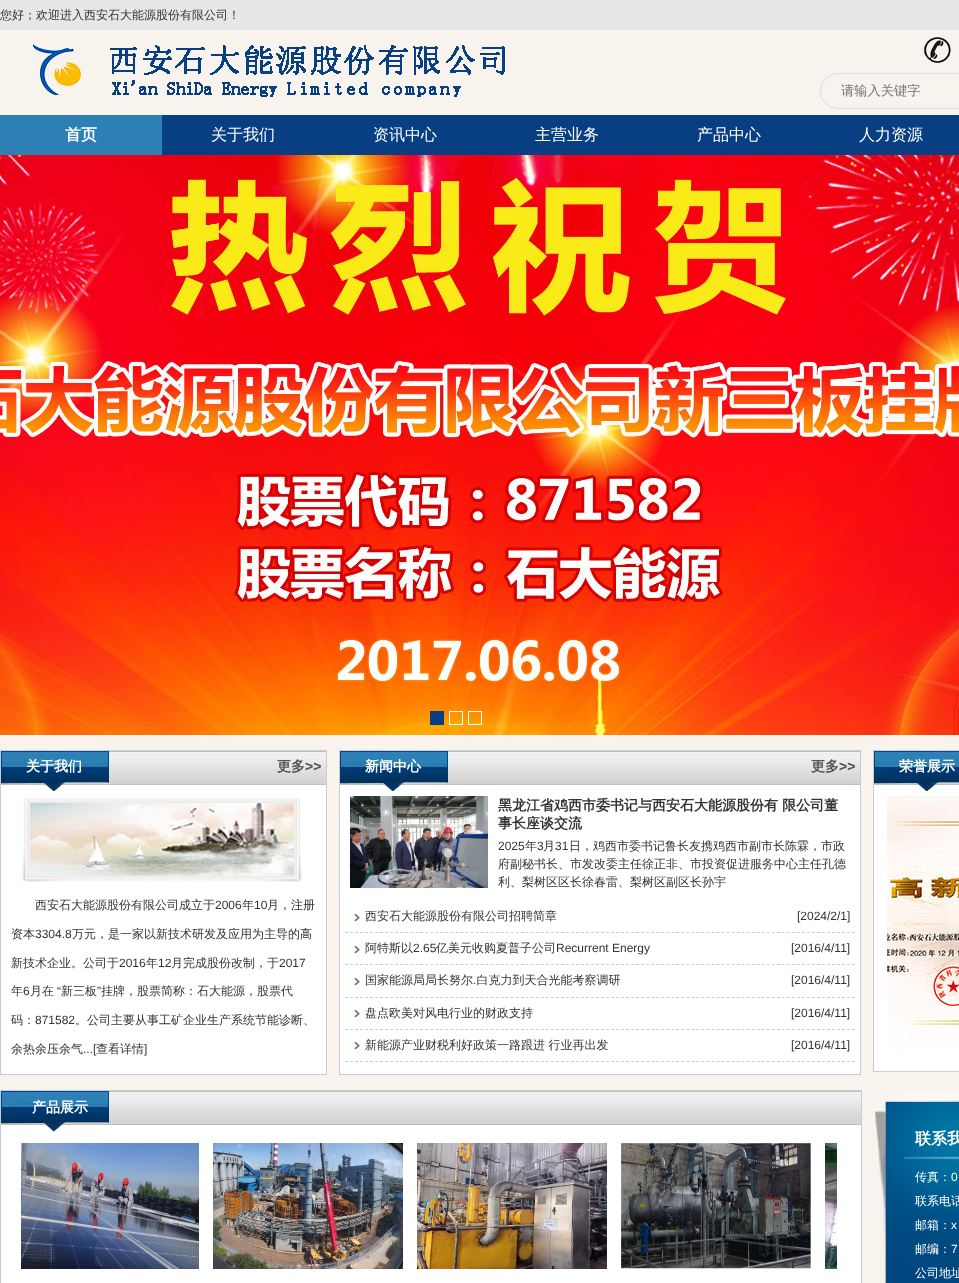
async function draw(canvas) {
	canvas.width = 959;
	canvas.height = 1283;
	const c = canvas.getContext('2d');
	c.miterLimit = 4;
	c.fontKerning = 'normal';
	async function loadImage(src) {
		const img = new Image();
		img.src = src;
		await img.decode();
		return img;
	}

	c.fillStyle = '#f8f3ed';
	c.fillRect(0, 0, 959, 1283);
	c.fillStyle = '#e7e7e7';
	c.fillRect(0, 0, 959, 30);
	c.font = '500 12px WenQuanYi Zen Hei';
	c.fillStyle = '#333';
	c.fillText('您好；欢迎进入西安石大能源股份有限公司！', 0, 19);
	c.drawImage(await loadImage('img1.png'), 33, 44, 472, 55);
	c.drawImage(await loadImage('img2.png'), 924, 37, 27, 26);
	c.beginPath();
	c.roundRect(820.5, 73.5, 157, 35, 17.5);
	c.strokeStyle = '#ddd';
	c.stroke();
	c.font = '500 13.25px WenQuanYi Zen Hei';
	c.fillStyle = '#757575';
	c.fillText('请输入关键字', 841, 95);
	c.fillStyle = '#083f83';
	c.fillRect(162, 115, 797, 40);
	c.fillStyle = '#2c80b4';
	c.fillRect(0, 115, 162, 40);
	c.font = 'bold 16px WenQuanYi Zen Hei';
	c.fillStyle = '#fff';
	c.fillText('首页', 65, 140);
	c.font = '500 16px WenQuanYi Zen Hei';
	for (const [text, x, y] of [
		['关于我们', 211, 140],
		['资讯中心', 373, 140],
		['主营业务', 535, 140],
		['产品中心', 697, 140],
		['人力资源', 859, 140],
	]) {
		c.fillText(text, x, y);
	}
	c.drawImage(await loadImage('img3.png'), 0, 155, 959, 580);
	c.fillStyle = '#083f83';
	c.fillRect(430, 711, 14, 14);
	c.strokeStyle = '#fff';
	c.strokeRect(449.5, 711.5, 13, 13);
	c.strokeRect(468.5, 711.5, 13, 13);
	c.fillStyle = '#fff';
	c.fillRect(1, 785, 325, 289);
	c.strokeStyle = '#ccc';
	c.strokeRect(0.5, 750.5, 326, 324);
	c.drawImage(await loadImage('img4.png'), 1, 751, 325, 34);
	c.drawImage(await loadImage('img5.png'), 1, 751, 108, 40);
	c.font = 'bold 14px WenQuanYi Zen Hei';
	c.fillText('关于我们', 26, 771);
	c.fillStyle = '#515151';
	c.fillText('更多', 277, 771);
	c.font = 'bold 14px Liberation Sans';
	c.fillText('>>', 305, 771);
	c.drawImage(await loadImage('img6.png'), 21, 798, 281, 84);
	c.font = '500 12px WenQuanYi Zen Hei';
	c.fillStyle = '#333';
	c.fillText('西安石大能源股份有限公司成立于', 35, 909);
	c.font = '12px Liberation Sans';
	c.fillText('2006', 215, 909);
	c.font = '500 12px WenQuanYi Zen Hei';
	c.fillText('年', 242, 909);
	c.font = '12px Liberation Sans';
	c.fillText('10', 254, 909);
	c.font = '500 12px WenQuanYi Zen Hei';
	c.fillText('月，注册', 267, 909);
	c.fillText('资本', 11, 938);
	c.font = '12px Liberation Sans';
	c.fillText('3304.8', 35, 938);
	c.font = '500 12px WenQuanYi Zen Hei';
	c.fillText('万元，是一家以新技术研发及应用为主导的高', 72, 938);
	c.fillText('新技术企业。公司于', 11, 967);
	c.font = '12px Liberation Sans';
	c.fillText('2016', 119, 967);
	c.font = '500 12px WenQuanYi Zen Hei';
	c.fillText('年', 146, 967);
	c.font = '12px Liberation Sans';
	c.fillText('12', 158, 967);
	c.font = '500 12px WenQuanYi Zen Hei';
	c.fillText('月完成股份改制，于', 171, 967);
	c.font = '12px Liberation Sans';
	c.fillText('2017', 279, 967);
	c.font = '500 12px WenQuanYi Zen Hei';
	c.fillText('年', 11, 995);
	c.font = '12px Liberation Sans';
	c.fillText('6', 23, 995);
	c.font = '500 12px WenQuanYi Zen Hei';
	c.fillText('月在', 30, 995);
	c.font = '12px Liberation Sans';
	c.fillText('“', 57, 995);
	c.font = '500 12px WenQuanYi Zen Hei';
	c.fillText('新三板', 61, 995);
	c.font = '12px Liberation Sans';
	c.fillText('”', 97, 995);
	c.font = '500 12px WenQuanYi Zen Hei';
	c.fillText('挂牌，股票简称：石大能源，股票代', 101, 995);
	c.fillText('码：', 11, 1024);
	c.font = '12px Liberation Sans';
	c.fillText('871582', 35, 1024);
	c.font = '500 12px WenQuanYi Zen Hei';
	c.fillText('。公司主要从事工矿企业生产系统节能诊断、', 75, 1024);
	c.fillText('余热余压余气', 11, 1053);
	c.font = '12px Liberation Sans';
	c.fillText('...[', 83, 1053);
	c.font = '500 12px WenQuanYi Zen Hei';
	c.fillText('查看详情', 96, 1053);
	c.font = '12px Liberation Sans';
	c.fillText(']', 144, 1053);
	c.fillStyle = '#fff';
	c.fillRect(340, 785, 520, 289);
	c.strokeRect(339.5, 750.5, 521, 324);
	c.drawImage(await loadImage('img7.png'), 340, 751, 520, 34);
	c.drawImage(await loadImage('img5.png'), 340, 751, 108, 40);
	c.font = 'bold 14px WenQuanYi Zen Hei';
	c.fillText('新闻中心', 365, 771);
	c.fillStyle = '#515151';
	c.fillText('更多', 811, 771);
	c.font = 'bold 14px Liberation Sans';
	c.fillText('>>', 839, 771);
	c.drawImage(await loadImage('img8.png'), 350, 796, 138, 92);
	c.font = 'bold 14px WenQuanYi Zen Hei';
	c.fillStyle = '#333';
	c.fillText('黑龙江省鸡西市委书记与西安石大能源股份有 限公司董', 498, 810);
	c.fillText('事长座谈交流', 498, 828);
	c.font = '12px Liberation Sans';
	c.fillText('2025', 498, 850);
	c.font = '500 12px WenQuanYi Zen Hei';
	c.fillText('年', 525, 850);
	c.font = '12px Liberation Sans';
	c.fillText('3', 537, 850);
	c.font = '500 12px WenQuanYi Zen Hei';
	c.fillText('月', 543, 850);
	c.font = '12px Liberation Sans';
	c.fillText('31', 555, 850);
	c.font = '500 12px WenQuanYi Zen Hei';
	for (const [text, x, y] of [
		['日，鸡西市委书记鲁长友携鸡西市副市长陈霖，市政', 569, 850],
		['府副秘书长、市发改委主任徐正非、市投资促进服务中心主任孔德', 498, 868],
		['利、梨树区区长徐春雷、梨树区副区长孙宇', 498, 886],
	]) {
		c.fillText(text, x, y);
	}
	c.drawImage(await loadImage('img9.png'), 351, 912, 10, 12);
	c.beginPath();
	c.moveTo(345, 932.5);
	c.lineTo(855, 932.5);
	c.setLineDash([3, 2.02]);
	c.stroke();
	c.fillText('西安石大能源股份有限公司招聘简章', 365, 920);
	c.font = '12px Liberation Sans';
	c.fillText('[2024/2/1]', 797, 920);
	c.drawImage(await loadImage('img9.png'), 351, 944, 10, 12);
	c.beginPath();
	c.moveTo(345, 964.5);
	c.lineTo(855, 964.5);
	c.stroke();
	c.font = '500 12px WenQuanYi Zen Hei';
	c.fillText('阿特斯以', 365, 952);
	c.font = '12px Liberation Sans';
	c.fillText('2.65', 413, 952);
	c.font = '500 12px WenQuanYi Zen Hei';
	c.fillText('亿美元收购夏普子公司', 436, 952);
	c.font = '12px Liberation Sans';
	c.fillText('Recurrent Energy', 556, 952);
	c.fillText('[2016/4/11]', 791, 952);
	c.drawImage(await loadImage('img9.png'), 351, 976, 10, 12);
	c.beginPath();
	c.moveTo(345, 997.5);
	c.lineTo(855, 997.5);
	c.stroke();
	c.font = '500 12px WenQuanYi Zen Hei';
	c.fillText('国家能源局局长努尔 白克力到天合光能考察调研', 365, 984);
	c.font = '12px Liberation Sans';
	c.fillText('[2016/4/11]', 791, 984);
	c.fillText('.', 473, 984);
	c.drawImage(await loadImage('img9.png'), 351, 1008, 10, 12);
	c.beginPath();
	c.moveTo(345, 1029.5);
	c.lineTo(855, 1029.5);
	c.stroke();
	c.font = '500 12px WenQuanYi Zen Hei';
	c.fillText('盘点欧美对风电行业的财政支持', 365, 1017);
	c.font = '12px Liberation Sans';
	c.fillText('[2016/4/11]', 791, 1017);
	c.drawImage(await loadImage('img9.png'), 351, 1040, 10, 12);
	c.beginPath();
	c.moveTo(345, 1061.5);
	c.lineTo(855, 1061.5);
	c.stroke();
	c.font = '500 12px WenQuanYi Zen Hei';
	c.fillText('新能源产业财税利好政策一路跟进 行业再出发', 365, 1049);
	c.font = '12px Liberation Sans';
	c.fillText('[2016/4/11]', 791, 1049);
	c.fillStyle = '#fff';
	c.fillRect(874, 785, 85, 286);
	c.setLineDash([]);
	c.strokeRect(873.5, 750.5, 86, 321);
	c.drawImage(await loadImage('img10.png'), 874, 779, 85, 6);
	c.drawImage(await loadImage('img11.png'), 874, 751, 85, 40);
	c.font = 'bold 14px WenQuanYi Zen Hei';
	c.fillText('荣誉展示', 899, 771);
	c.drawImage(await loadImage('img12.png'), 887, 796, 72, 260);
	c.fillRect(1, 1125, 860, 158);
	c.strokeRect(0.5, 1090.5, 861, 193);
	c.drawImage(await loadImage('img13.png'), 1, 1091, 860, 34);
	c.drawImage(await loadImage('img14.png'), 1, 1091, 108, 41);
	c.fillText('产品展示', 32, 1112);
	c.drawImage(await loadImage('img15.png'), 21, 1143, 178, 126);
	c.drawImage(await loadImage('img16.png'), 213, 1143, 190, 126);
	c.drawImage(await loadImage('img17.png'), 417, 1143, 190, 126);
	c.drawImage(await loadImage('img18.png'), 621, 1143, 190, 126);
	c.drawImage(await loadImage('img19.png'), 825, 1143, 12, 126);
	c.drawImage(await loadImage('img20.png'), 875, 1090, 84, 193);
	c.font = 'bold 16px WenQuanYi Zen Hei';
	c.fillText('联系我', 915, 1144);
	c.drawImage(await loadImage('img21.png'), 904, 1156, 55, 4);
	c.font = '500 12px WenQuanYi Zen Hei';
	c.fillText('传真：', 915, 1181);
	c.font = '12px Liberation Sans';
	c.fillText('0', 951, 1181);
	c.font = '500 12px WenQuanYi Zen Hei';
	c.fillText('联系电话', 915, 1205);
	c.fillText('邮箱：', 915, 1229);
	c.font = '12px Liberation Sans';
	c.fillText('x', 951, 1229);
	c.font = '500 12px WenQuanYi Zen Hei';
	c.fillText('邮编：', 915, 1253);
	c.font = '12px Liberation Sans';
	c.fillText('7', 951, 1253);
	c.font = '500 12px WenQuanYi Zen Hei';
	c.fillText('公司地址', 915, 1277);
}

draw(document.querySelector('canvas'));
